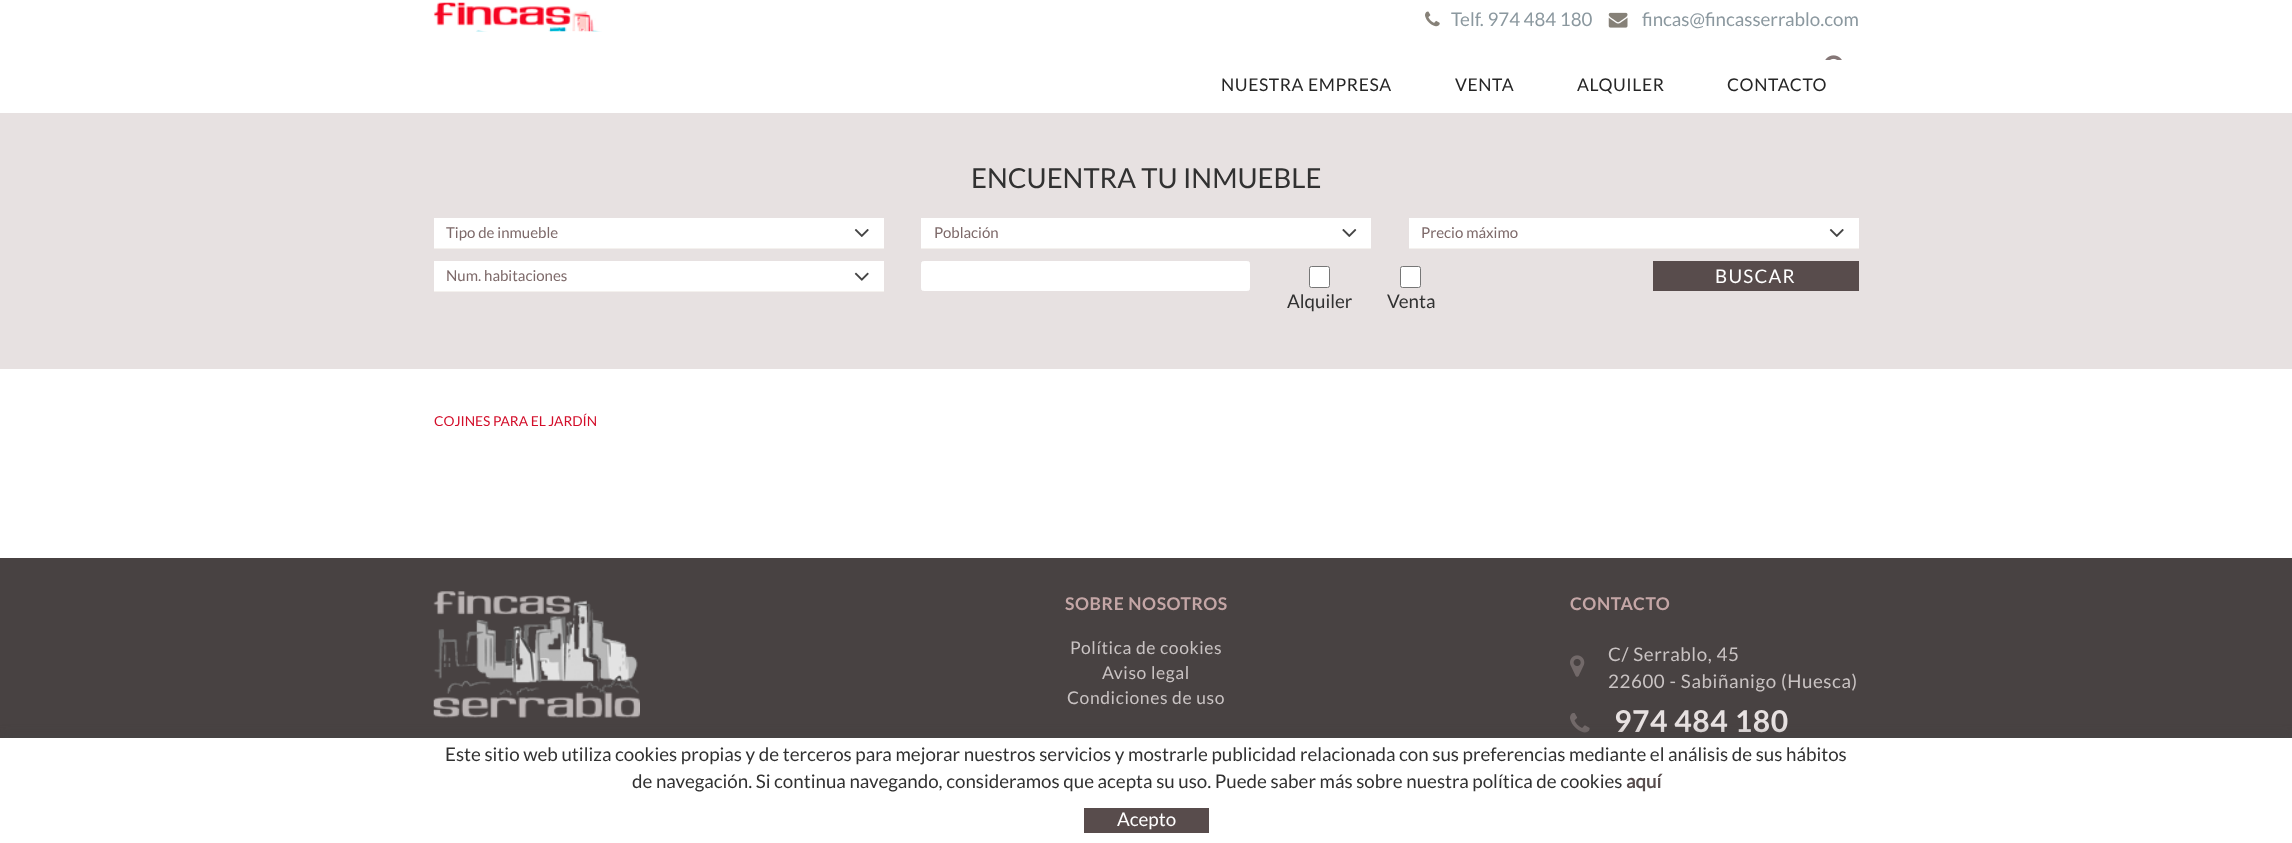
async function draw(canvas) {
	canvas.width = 2292;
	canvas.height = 843;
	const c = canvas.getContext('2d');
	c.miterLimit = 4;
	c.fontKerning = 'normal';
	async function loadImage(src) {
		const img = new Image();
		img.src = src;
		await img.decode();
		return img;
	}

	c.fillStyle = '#fff';
	c.fillRect(0, 0, 2292, 843);
	c.drawImage(await loadImage('img1.png'), 433, 2, 169, 30);
	c.drawImage(await loadImage('img2.png'), 1425, 11, 15, 16);
	c.font = '18.75px Lato';
	c.fillStyle = '#8b989f';
	c.fillText('Telf. 974 484 180', 1451, 26);
	c.drawImage(await loadImage('img3.png'), 1608, 12, 20, 16);
	c.fillText('fincas@fincasserrablo.com', 1642, 26);
	c.drawImage(await loadImage('img4.png'), 1825, 55, 17, 5);
	c.letterSpacing = '0.6px';
	c.font = '17.5px Lato';
	c.fillStyle = '#262626';
	for (const [text, x, y] of [
		['NUESTRA EMPRESA', 1221, 91],
		['VENTA', 1455, 91],
		['ALQUILER', 1577, 91],
		['CONTACTO', 1727, 91],
	]) {
		c.fillText(text, x, y);
	}
	c.fillStyle = '#e7e1e1';
	c.fillRect(0, 113, 2292, 256);
	c.letterSpacing = '0px';
	c.font = '27.5px Lato';
	c.fillStyle = '#313131';
	c.fillText('ENCUENTRA TU INMUEBLE', 971, 188);
	c.fillStyle = '#f4f1ee';
	c.fillRect(434, 248, 450, 1);
	c.fillStyle = '#fff';
	c.fillRect(434, 218, 450, 30);
	c.font = '15px Lato';
	c.fillStyle = '#7d6969';
	c.fillText('Tipo de inmueble', 446, 238);
	c.drawImage(await loadImage('img5.png'), 854, 229, 15, 8);
	c.fillStyle = '#f4f1ee';
	c.fillRect(921, 248, 450, 1);
	c.fillStyle = '#fff';
	c.fillRect(921, 218, 450, 30);
	c.fillStyle = '#7d6969';
	c.fillText('Población', 934, 238);
	c.drawImage(await loadImage('img6.png'), 1342, 229, 15, 8);
	c.fillStyle = '#f4f1ee';
	c.fillRect(1409, 248, 450, 1);
	c.fillStyle = '#fff';
	c.fillRect(1409, 218, 450, 30);
	c.fillStyle = '#7d6969';
	c.fillText('Precio máximo', 1421, 238);
	c.drawImage(await loadImage('img5.png'), 1829, 229, 15, 8);
	c.fillStyle = '#f4f1ee';
	c.fillRect(434, 291, 450, 1);
	c.fillStyle = '#fff';
	c.fillRect(434, 261, 450, 30);
	c.fillStyle = '#7d6969';
	c.fillText('Num. habitaciones', 446, 281);
	c.drawImage(await loadImage('img7.png'), 854, 272, 15, 9);
	c.fillStyle = '#fff';
	c.beginPath();
	c.roundRect(921.5, 261.5, 328, 29, 2);
	c.fill();
	c.strokeStyle = '#fff';
	c.stroke();
	c.fillStyle = '#584c4c';
	c.fillRect(1653, 261, 206, 30);
	c.letterSpacing = '1.25px';
	c.font = '18.75px Lato';
	c.fillStyle = '#fff';
	c.fillText('BUSCAR', 1715, 283);
	c.beginPath();
	c.roundRect(1309.5, 266.5, 20, 21, 2);
	c.fill();
	c.strokeStyle = '#767676';
	c.stroke();
	c.letterSpacing = '0px';
	c.fillStyle = '#313131';
	c.fillText('Alquiler', 1287, 308);
	c.fillStyle = '#fff';
	c.beginPath();
	c.roundRect(1400.5, 266.5, 20, 21, 2);
	c.fill();
	c.stroke();
	c.fillStyle = '#313131';
	c.fillText('Venta', 1387, 308);
	c.font = '13.75px Lato';
	c.fillStyle = '#d30e2a';
	c.fillText('COJINES PARA EL JARDÍN', 434, 426);
	c.fillStyle = '#484242';
	c.fillRect(0, 558, 2292, 180);
	c.drawImage(await loadImage('img8.png'), 433, 591, 207, 127);
	c.letterSpacing = '0.6px';
	c.font = 'bold 17.5px Lato';
	c.fillStyle = '#c4a6a6';
	c.fillText('SOBRE NOSOTROS', 1065, 610);
	c.font = '17.5px Lato';
	c.fillStyle = '#c9c3c3';
	for (const [text, x, y] of [
		['Política de cookies', 1070, 654],
		['Aviso legal', 1102, 679],
		['Condiciones de uso', 1067, 704],
	]) {
		c.fillText(text, x, y);
	}
	c.font = 'bold 17.5px Lato';
	c.fillStyle = '#c4a6a6';
	c.fillText('CONTACTO', 1570, 610);
	c.drawImage(await loadImage('img9.png'), 1570, 655, 15, 22);
	c.font = '18.75px Lato';
	c.fillStyle = '#c9c3c3';
	c.fillText('C/ Serrablo, 45', 1608, 661);
	c.fillText('22600 - Sabiñanigo (Huesca)', 1608, 688);
	c.drawImage(await loadImage('img10.png'), 1570, 713, 20, 20);
	c.font = 'bold 30px Lato';
	c.fillStyle = '#e7e1e1';
	c.fillText('974 484 180', 1614, 732);
	c.fillStyle = '#444';
	c.filter = 'blur(6px)';
	c.beginPath();
	c.rect(0, 738, 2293, 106);
	c.fill();
	c.filter = 'none';
	c.fillStyle = '#fff';
	c.fillRect(0, 738, 2292, 105);
	c.letterSpacing = '0px';
	c.font = '18.75px Lato';
	c.fillStyle = '#313131';
	c.fillText('Este sitio web utiliza cookies propias y de terceros para mejorar nuestros servicios y mostrarle publicidad relacionada con sus preferencias mediante el análisis de sus hábitos', 445, 761);
	c.fillText('de navegación. Si continua navegando, consideramos que acepta su uso. Puede saber más sobre nuestra política de cookies', 632, 788);
	c.font = 'bold 18.75px "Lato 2"';
	c.fillStyle = '#574c4c';
	c.fillText('aquí', 1626, 788);
	c.fillStyle = '#584c4c';
	c.fillRect(1084, 808, 125, 25);
	c.font = '18.75px Lato';
	c.fillStyle = '#fff';
	c.fillText('Acepto', 1117, 826);
}

draw(document.querySelector('canvas'));
